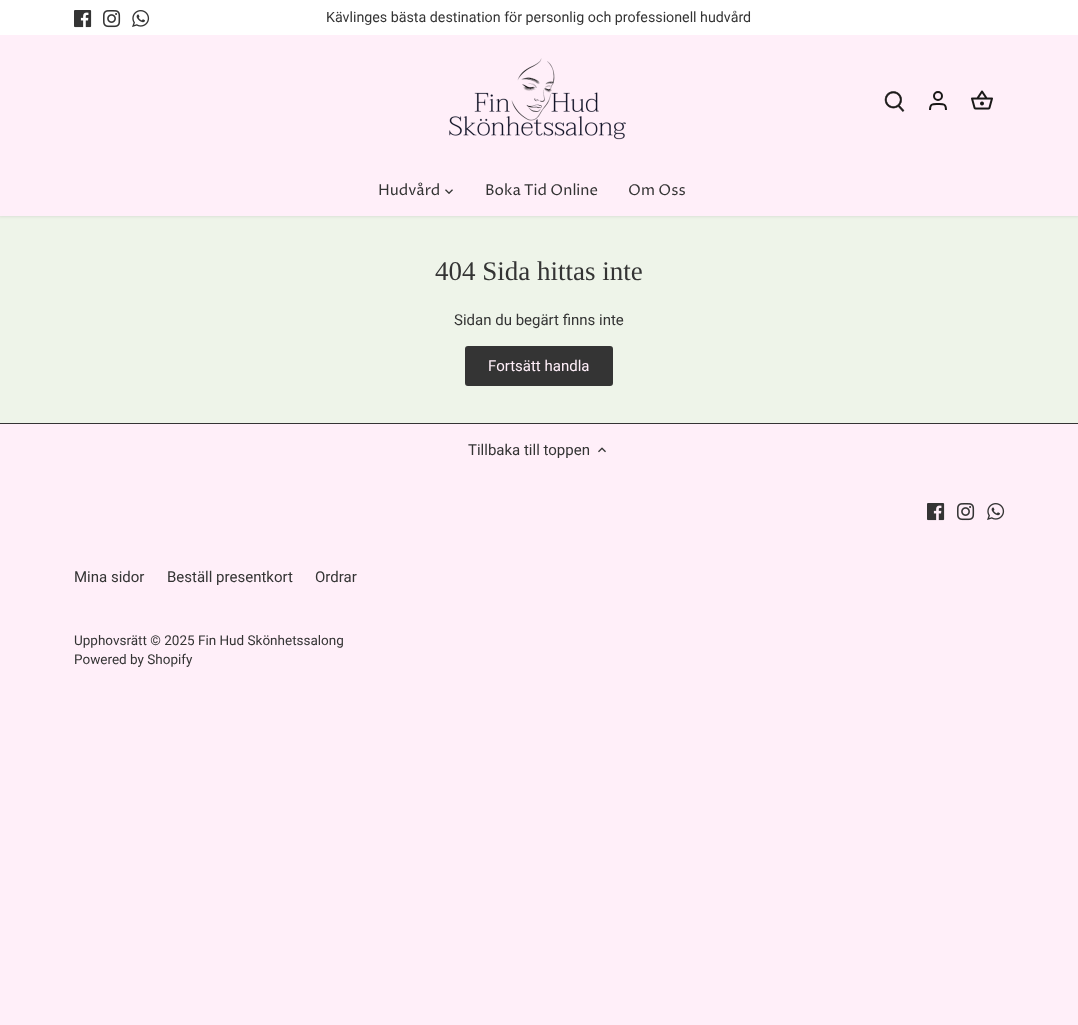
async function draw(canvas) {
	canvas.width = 1078;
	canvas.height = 1025;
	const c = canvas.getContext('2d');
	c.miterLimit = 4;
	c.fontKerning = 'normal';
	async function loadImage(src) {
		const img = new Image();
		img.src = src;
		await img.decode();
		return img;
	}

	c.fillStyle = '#ffeff9';
	c.fillRect(0, 0, 1078, 1025);
	c.fillStyle = '#eef4e9';
	c.fillRect(0, 216, 1078, 207);
	c.fillStyle = '#00000014';
	c.filter = 'blur(1.5px)';
	c.beginPath();
	c.rect(-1, 34, 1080, 183);
	c.fill();
	c.filter = 'none';
	c.fillStyle = '#fff';
	c.fillRect(0, 0, 1078, 35);
	c.drawImage(await loadImage('img1.png'), 74, 10, 18, 18);
	c.drawImage(await loadImage('img2.png'), 103, 10, 18, 18);
	c.drawImage(await loadImage('img3.png'), 132, 10, 18, 17);
	c.font = '14.25px Roboto';
	c.fillStyle = '#343434';
	c.fillText('Kävlinges bästa destination för personlig och professionell hudvård', 326, 22);
	c.fillStyle = '#ffeff9';
	c.fillRect(0, 35, 1078, 181);
	c.drawImage(await loadImage('img4.png'), 449, 58, 177, 82);
	c.drawImage(await loadImage('img5.png'), 884, 91, 21, 21);
	c.beginPath();
	c.arc(938, 96, 4, 0, 2 * Math.PI);
	c.strokeStyle = '#191817';
	c.lineWidth = 2;
	c.stroke();
	c.beginPath();
	c.moveTo(946, 110);
	c.bezierCurveTo(946, 103.5, 943.5, 104, 938, 104);
	c.bezierCurveTo(932.5, 104, 930, 103.5, 930, 110);
	c.stroke();
	c.drawImage(await loadImage('img6.png'), 971, 90, 22, 20);
	c.font = '15px Proza Libre';
	c.fillStyle = '#343434';
	c.fillText('Hudvård', 378, 195);
	c.drawImage(await loadImage('img7.png'), 445, 189, 8, 5);
	c.fillText('Boka Tid Online', 485, 195);
	c.fillText('Om Oss', 628, 195);
	c.font = '27px Liberation Serif';
	c.fillText('404 Sida hittas inte', 435, 280);
	c.font = '15px Roboto';
	c.fillText('Sidan du begärt finns inte', 454, 325);
	c.beginPath();
	c.roundRect(466, 347, 146, 38, 2);
	c.fill();
	c.strokeStyle = '#343434';
	c.stroke();
	c.fillStyle = '#ffeff9';
	c.fillText('Fortsätt handla', 488, 371);
	c.fillStyle = '#343434';
	c.fillRect(0, 423, 1078, 1);
	c.fillText('Tillbaka till toppen', 468, 455);
	c.drawImage(await loadImage('img8.png'), 598, 447, 8, 6);
	c.drawImage(await loadImage('img9.png'), 927, 503, 18, 18);
	c.drawImage(await loadImage('img10.png'), 957, 503, 18, 18);
	c.drawImage(await loadImage('img11.png'), 987, 503, 18, 17);
	for (const [text, x, y] of [
		['Mina sidor', 74, 582],
		['Beställ presentkort', 167, 582],
		['Ordrar', 315, 582],
	]) {
		c.fillText(text, x, y);
	}
	c.font = '13.5px Roboto';
	c.fillText('Upphovsrätt © 2025 Fin Hud Skönhetssalong', 74, 645);
	c.fillText('Powered by Shopify', 74, 664);
}

draw(document.querySelector('canvas'));
